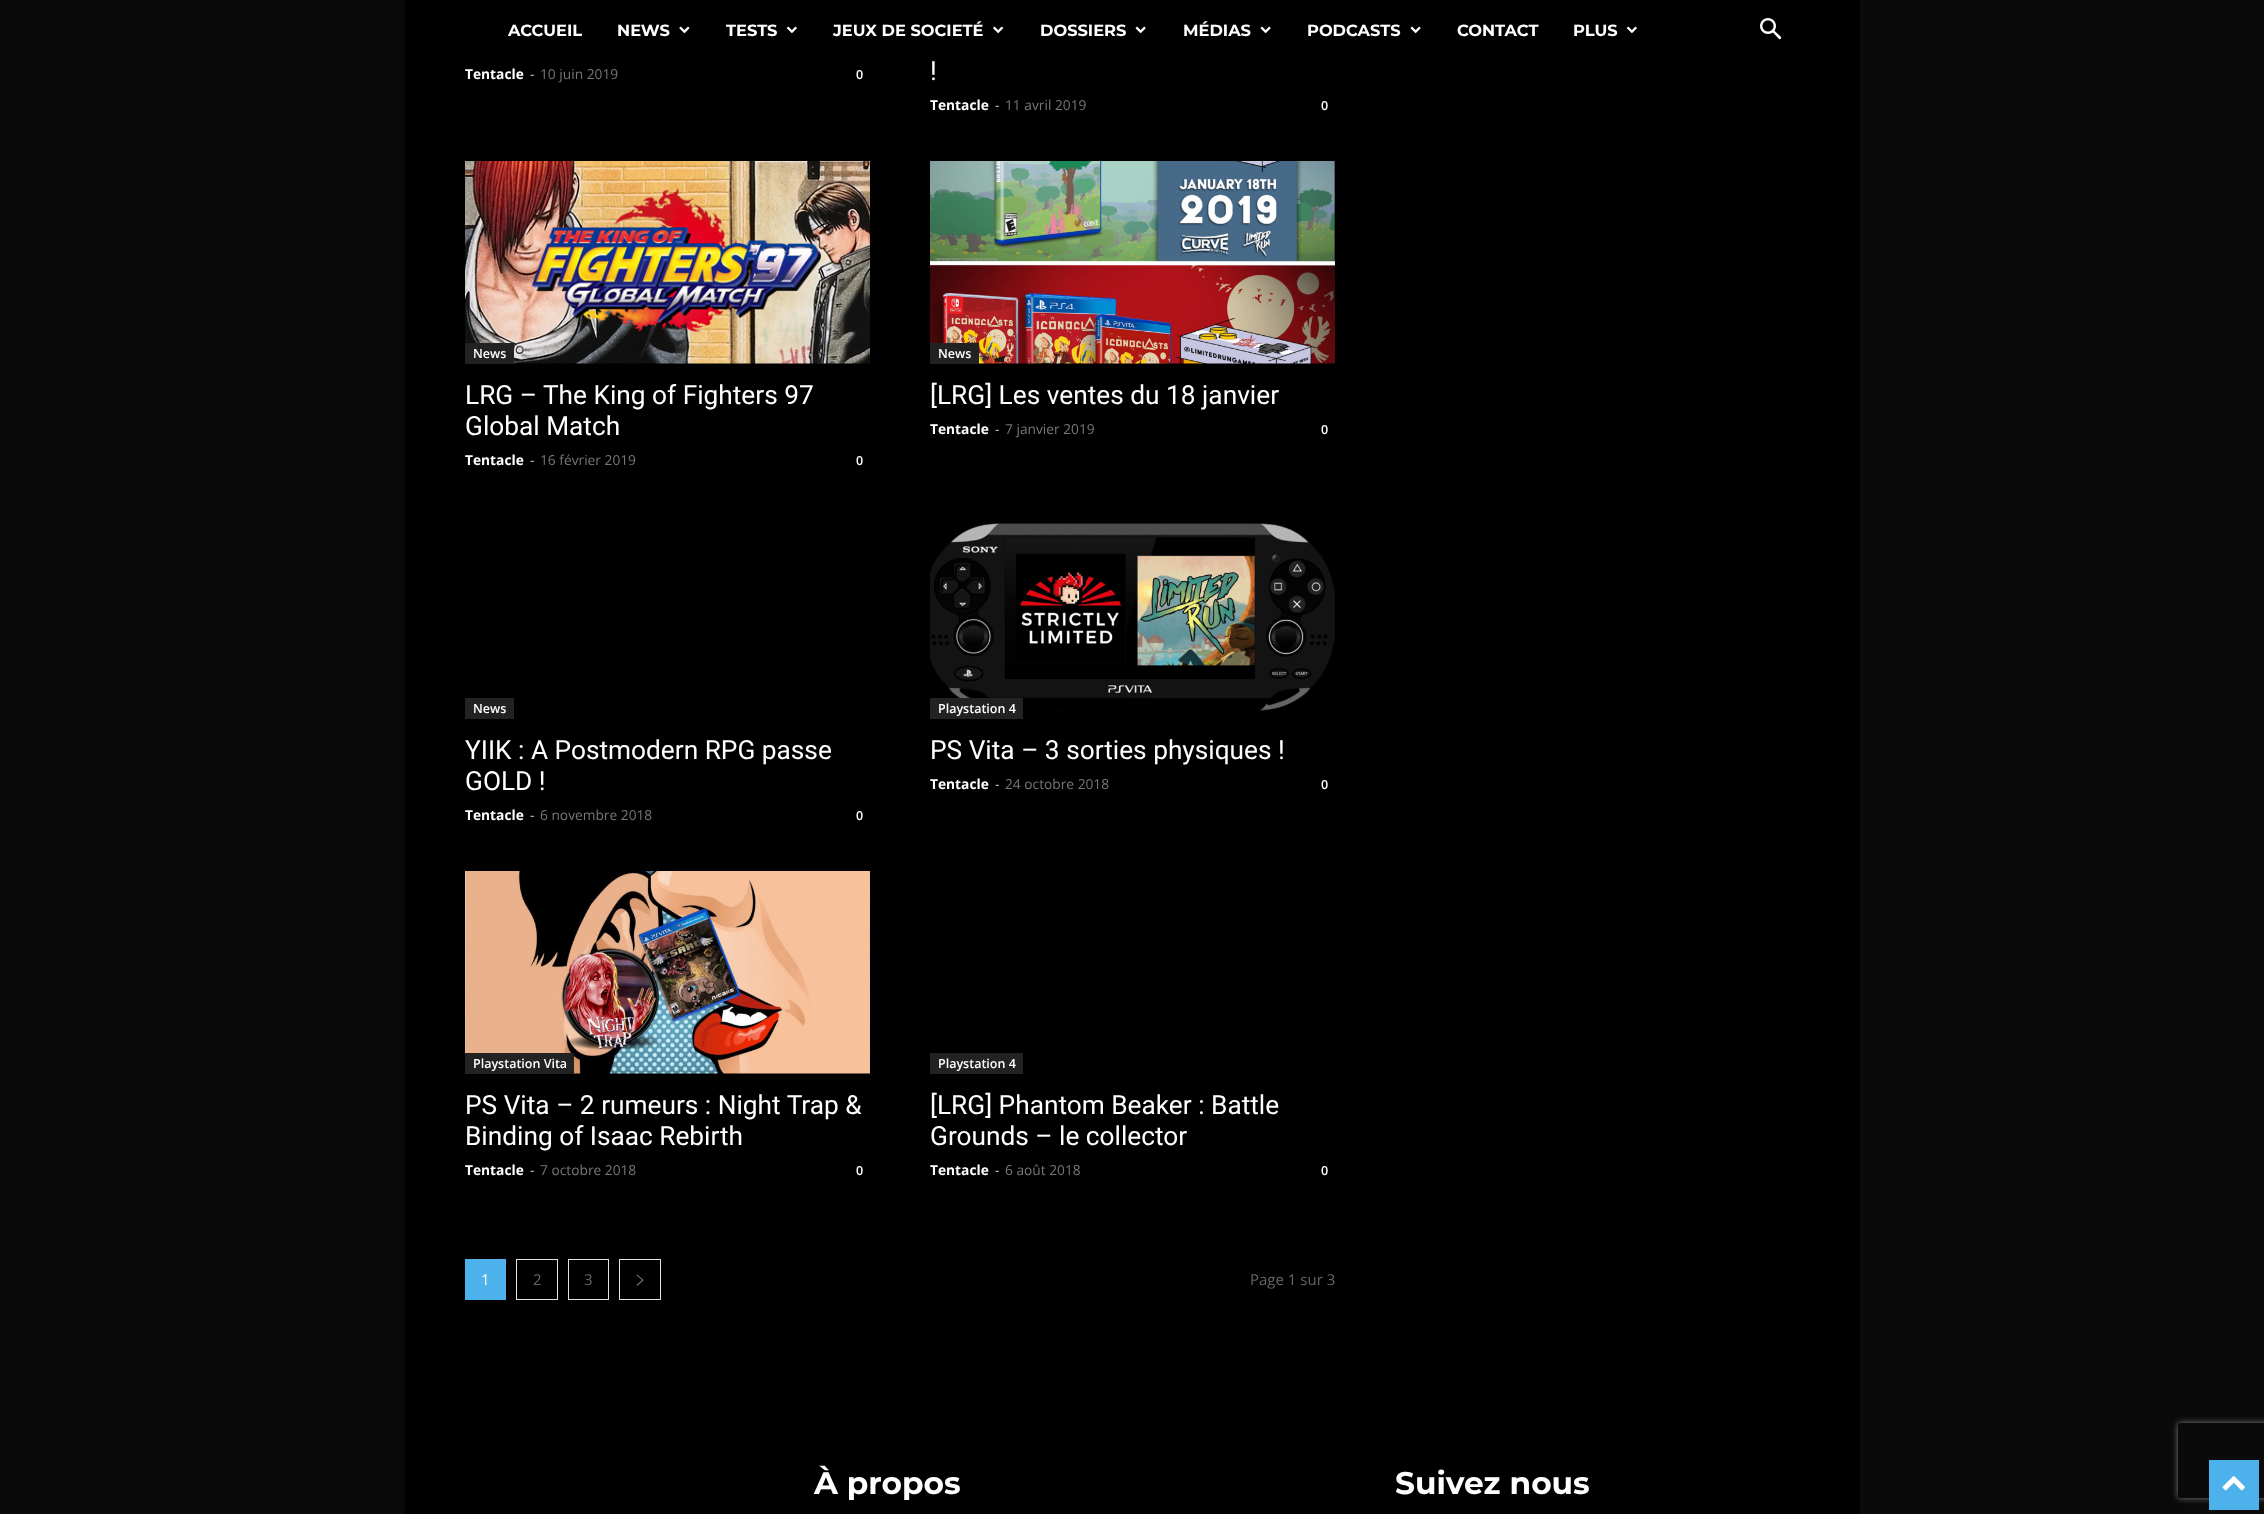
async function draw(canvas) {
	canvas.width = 2264;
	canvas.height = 1514;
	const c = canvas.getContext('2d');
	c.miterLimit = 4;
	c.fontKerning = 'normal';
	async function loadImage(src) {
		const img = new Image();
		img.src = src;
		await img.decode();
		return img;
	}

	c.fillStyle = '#0a0a0a';
	c.fillRect(0, 0, 2264, 1514);
	c.fillStyle = '#000';
	c.fillRect(405, 0, 1455, 1514);
	c.font = 'bold 16.25px Montserrat';
	c.fillStyle = '#fff';
	c.fillText('ACCUEIL', 508, 36);
	c.fillText('NEWS', 617, 36);
	c.drawImage(await loadImage('img1.png'), 679, 26, 11, 8);
	c.fillText('TESTS', 726, 36);
	c.drawImage(await loadImage('img2.png'), 786, 26, 11, 8);
	c.fillText('JEUX DE SOCIETÉ', 833, 36);
	c.drawImage(await loadImage('img3.png'), 993, 26, 11, 8);
	c.fillText('DOSSIERS', 1040, 36);
	c.drawImage(await loadImage('img4.png'), 1135, 26, 11, 8);
	c.fillText('MÉDIAS', 1183, 36);
	c.drawImage(await loadImage('img4.png'), 1260, 26, 11, 8);
	c.fillText('PODCASTS', 1307, 36);
	c.drawImage(await loadImage('img4.png'), 1410, 26, 11, 8);
	c.fillText('CONTACT', 1457, 36);
	c.fillText('PLUS', 1573, 36);
	c.drawImage(await loadImage('img2.png'), 1626, 26, 11, 8);
	c.drawImage(await loadImage('img5.png'), 1760, 18, 22, 22);
	c.font = 'bold 13.75px Open Sans';
	c.fillText('Tentacle', 465, 79);
	c.font = '13.75px Open Sans';
	c.fillStyle = '#ccc';
	c.fillText('-', 530, 79);
	c.fillStyle = '#767676';
	c.fillText('10 juin 2019', 540, 79);
	c.font = '600 12.5px Open Sans';
	c.fillStyle = '#fff';
	c.fillText('0', 856, 79);
	c.font = '26.25px Roboto';
	c.fillText('!', 930, 80);
	c.font = 'bold 13.75px Open Sans';
	c.fillText('Tentacle', 930, 110);
	c.font = '13.75px Open Sans';
	c.fillStyle = '#ccc';
	c.fillText('-', 995, 110);
	c.fillStyle = '#767676';
	c.fillText('11 avril 2019', 1005, 110);
	c.font = '600 12.5px Open Sans';
	c.fillStyle = '#fff';
	c.fillText('0', 1321, 110);
	c.drawImage(await loadImage('img6.png'), 465, 161, 405, 203);
	c.fillStyle = '#222';
	c.fillRect(465, 343, 49, 21);
	c.fillStyle = '#fff';
	c.fillText('News', 473, 358);
	c.font = '26.25px Roboto';
	c.fillText('LRG – The King of Fighters 97', 465, 404);
	c.fillText('Global Match', 465, 435);
	c.font = 'bold 13.75px Open Sans';
	c.fillText('Tentacle', 465, 465);
	c.font = '13.75px Open Sans';
	c.fillStyle = '#ccc';
	c.fillText('-', 530, 465);
	c.fillStyle = '#767676';
	c.fillText('16 février 2019', 540, 465);
	c.font = '600 12.5px Open Sans';
	c.fillStyle = '#fff';
	c.fillText('0', 856, 465);
	c.drawImage(await loadImage('img7.png'), 930, 161, 405, 203);
	c.fillStyle = '#222';
	c.fillRect(930, 343, 49, 21);
	c.fillStyle = '#fff';
	c.fillText('News', 938, 358);
	c.font = '26.25px Roboto';
	c.fillText('[LRG] Les ventes du 18 janvier', 930, 404);
	c.font = 'bold 13.75px Open Sans';
	c.fillText('Tentacle', 930, 434);
	c.font = '13.75px Open Sans';
	c.fillStyle = '#ccc';
	c.fillText('-', 995, 434);
	c.fillStyle = '#767676';
	c.fillText('7 janvier 2019', 1005, 434);
	c.font = '600 12.5px Open Sans';
	c.fillStyle = '#fff';
	c.fillText('0', 1321, 434);
	c.fillStyle = '#222';
	c.fillRect(465, 698, 49, 21);
	c.fillStyle = '#fff';
	c.fillText('News', 473, 713);
	c.font = '26.25px Roboto';
	c.fillText('YIIK : A Postmodern RPG passe', 465, 759);
	c.fillText('GOLD !', 465, 790);
	c.font = 'bold 13.75px Open Sans';
	c.fillText('Tentacle', 465, 820);
	c.font = '13.75px Open Sans';
	c.fillStyle = '#ccc';
	c.fillText('-', 530, 820);
	c.fillStyle = '#767676';
	c.fillText('6 novembre 2018', 540, 820);
	c.font = '600 12.5px Open Sans';
	c.fillStyle = '#fff';
	c.fillText('0', 856, 820);
	c.drawImage(await loadImage('img8.png'), 930, 523, 405, 188);
	c.fillStyle = '#222';
	c.fillRect(930, 698, 93, 21);
	c.fillStyle = '#fff';
	c.fillText('Playstation 4', 938, 713);
	c.font = '26.25px Roboto';
	c.fillText('PS Vita – 3 sorties physiques !', 930, 759);
	c.font = 'bold 13.75px Open Sans';
	c.fillText('Tentacle', 930, 789);
	c.font = '13.75px Open Sans';
	c.fillStyle = '#ccc';
	c.fillText('-', 995, 789);
	c.fillStyle = '#767676';
	c.fillText('24 octobre 2018', 1005, 789);
	c.font = '600 12.5px Open Sans';
	c.fillStyle = '#fff';
	c.fillText('0', 1321, 789);
	c.drawImage(await loadImage('img9.png'), 465, 871, 405, 203);
	c.fillStyle = '#222';
	c.fillRect(465, 1053, 109, 21);
	c.fillStyle = '#fff';
	c.fillText('Playstation Vita', 473, 1068);
	c.font = '26.25px Roboto';
	c.fillText('PS Vita – 2 rumeurs : Night Trap &', 465, 1114);
	c.fillText('Binding of Isaac Rebirth', 465, 1145);
	c.font = 'bold 13.75px Open Sans';
	c.fillText('Tentacle', 465, 1175);
	c.font = '13.75px Open Sans';
	c.fillStyle = '#ccc';
	c.fillText('-', 530, 1175);
	c.fillStyle = '#767676';
	c.fillText('7 octobre 2018', 540, 1175);
	c.font = '600 12.5px Open Sans';
	c.fillStyle = '#fff';
	c.fillText('0', 856, 1175);
	c.fillStyle = '#222';
	c.fillRect(930, 1053, 93, 21);
	c.fillStyle = '#fff';
	c.fillText('Playstation 4', 938, 1068);
	c.font = '26.25px Roboto';
	c.fillText('[LRG] Phantom Beaker : Battle', 930, 1114);
	c.fillText('Grounds – le collector', 930, 1145);
	c.font = 'bold 13.75px Open Sans';
	c.fillText('Tentacle', 930, 1175);
	c.font = '13.75px Open Sans';
	c.fillStyle = '#ccc';
	c.fillText('-', 995, 1175);
	c.fillStyle = '#767676';
	c.fillText('6 août 2018', 1005, 1175);
	c.font = '600 12.5px Open Sans';
	c.fillStyle = '#fff';
	c.fillText('0', 1321, 1175);
	c.fillStyle = '#4db2ec';
	c.fillRect(465, 1259, 41, 41);
	c.font = '15px Open Sans';
	c.fillStyle = '#fff';
	c.fillText('1', 481, 1285);
	c.strokeStyle = '#e3e3e3';
	c.strokeRect(516.5, 1259.5, 41, 40);
	c.fillStyle = '#666';
	c.fillText('2', 533, 1285);
	c.strokeRect(568.5, 1259.5, 40, 40);
	c.fillText('3', 584, 1285);
	c.strokeRect(619.5, 1259.5, 41, 40);
	c.drawImage(await loadImage('img10.png'), 636, 1274, 8, 12);
	c.fillText('Page 1 sur 3', 1250, 1285);
	c.font = 'bold 31.25px Montserrat';
	c.fillStyle = '#fff';
	c.fillText('À propos', 814, 1494);
	c.fillText('Suivez nous', 1395, 1494);
	c.save();
	c.beginPath();
	c.moveTo(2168, 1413);
	c.lineTo(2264, 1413);
	c.lineTo(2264, 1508);
	c.lineTo(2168, 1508);
	c.closePath();
	c.moveTo(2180.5, 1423);
	c.lineTo(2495.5, 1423);
	c.bezierCurveTo(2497, 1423, 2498, 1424, 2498, 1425.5);
	c.lineTo(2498, 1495.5);
	c.bezierCurveTo(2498, 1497, 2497, 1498, 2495.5, 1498);
	c.lineTo(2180.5, 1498);
	c.bezierCurveTo(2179, 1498, 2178, 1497, 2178, 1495.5);
	c.lineTo(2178, 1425.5);
	c.bezierCurveTo(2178, 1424, 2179, 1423, 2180.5, 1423);
	c.closePath();
	c.clip('evenodd');
	c.fillStyle = '#808080';
	c.filter = 'blur(3px)';
	c.beginPath();
	c.roundRect(2178, 1423, 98, 75, 2.5);
	c.fill();
	c.filter = 'none';
	c.restore();
	c.fillStyle = '#4db2ec';
	c.fillRect(2209, 1460, 50, 50);
	c.drawImage(await loadImage('img11.png'), 2222, 1476, 23, 15);
}

draw(document.querySelector('canvas'));
